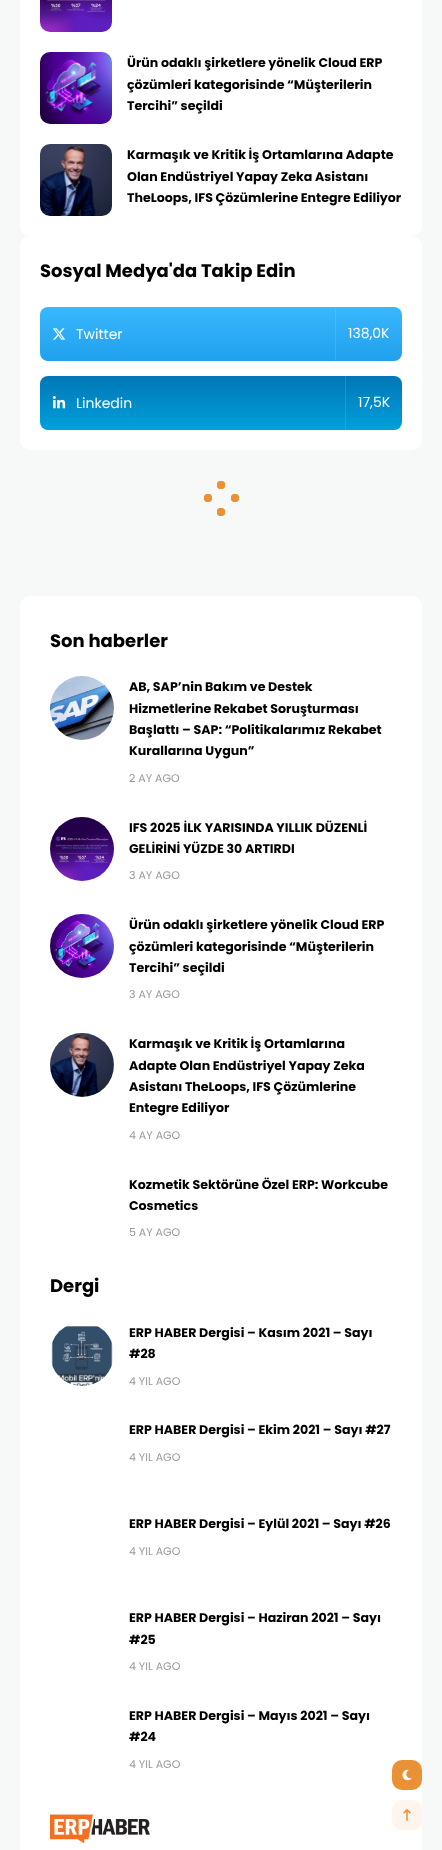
async function draw(canvas) {
	canvas.width = 442;
	canvas.height = 1850;
	const c = canvas.getContext('2d');
	c.miterLimit = 4;
	c.fontKerning = 'normal';
	async function loadImage(src) {
		const img = new Image();
		img.src = src;
		await img.decode();
		return img;
	}
	let gradient;

	c.fillStyle = '#f7f9f8';
	c.fillRect(0, 0, 442, 1850);
	c.fillStyle = '#fff';
	c.beginPath();
	c.roundRect(20, -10, 402, 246, 10);
	c.fill();
	c.drawImage(await loadImage('img1.png'), 40, 0, 72, 32);
	c.drawImage(await loadImage('img2.png'), 40, 52, 72, 72);
	c.font = 'bold 12.6px Poppins';
	c.fillStyle = '#000';
	for (const [text, x, y] of [
		['Ürün odaklı şirketlere yönelik Cloud ERP', 127, 67],
		['çözümleri kategorisinde “Müşterilerin', 127, 89],
		['Tercihi” seçildi', 127, 110],
	]) {
		c.fillText(text, x, y);
	}
	c.drawImage(await loadImage('img3.png'), 40, 144, 72, 72);
	for (const [text, x, y] of [
		['Karmaşık ve Kritik İş Ortamlarına Adapte', 127, 159],
		['Olan Endüstriyel Yapay Zeka Asistanı', 127, 181],
		['TheLoops, IFS Çözümlerine Entegre Ediliyor', 127, 202],
	]) {
		c.fillText(text, x, y);
	}
	c.fillStyle = '#fff';
	c.beginPath();
	c.roundRect(20, 236, 402, 214, 10);
	c.fill();
	c.font = 'bold 18px Poppins';
	c.fillStyle = '#000';
	c.fillText('Sosyal Medya\'da Takip Edin', 40, 277);
	gradient = c.createLinearGradient(221, 307, 221, 361);
	gradient.addColorStop(0, '#39b7ff');
	gradient.addColorStop(1, '#20a1eb');
	c.fillStyle = gradient;
	c.beginPath();
	c.roundRect(40, 307, 362, 54, 8);
	c.fill();
	gradient = c.createLinearGradient(221, 307, 221, 361);
	gradient.addColorStop(0, '#52bdfb');
	gradient.addColorStop(1, '#3dabea');
	c.fillStyle = gradient;
	c.fillRect(335, 307, 1, 54);
	c.drawImage(await loadImage('img4.png'), 52, 328, 14, 12);
	c.font = '14px Poppins';
	c.fillStyle = '#fff';
	c.fillText('Twitter', 76, 339);
	c.fillText('138,0K', 348, 338);
	gradient = c.createLinearGradient(221, 376, 221, 430);
	gradient.addColorStop(0, '#0077b5');
	gradient.addColorStop(1, '#00a0dc');
	c.fillStyle = gradient;
	c.beginPath();
	c.roundRect(40, 376, 362, 54, 8);
	c.fill();
	gradient = c.createLinearGradient(221, 376, 221, 430);
	gradient.addColorStop(0, '#2287bc');
	gradient.addColorStop(1, '#2ad');
	c.fillStyle = gradient;
	c.fillRect(345, 376, 1, 54);
	c.drawImage(await loadImage('img5.png'), 52, 396, 14, 13);
	c.fillStyle = '#fff';
	c.fillText('Linkedin', 76, 408);
	c.fillText('17,5K', 358, 407);
	gradient = c.createRadialGradient(208, 498, 0, 208, 498, 4.5);
	gradient.addColorStop(0.92, '#ea9035');
	gradient.addColorStop(1, '#f7f9f8');
	c.fillStyle = gradient;
	c.fillRect(204, 494, 8, 8);
	gradient = c.createRadialGradient(235, 498, 0, 235, 498, 4.5);
	gradient.addColorStop(0.92, '#ea9035');
	gradient.addColorStop(1, '#f7f9f8');
	c.fillStyle = gradient;
	c.fillRect(231, 494, 8, 8);
	gradient = c.createRadialGradient(221, 512, 0, 221, 512, 4.5);
	gradient.addColorStop(0.92, '#ea9035');
	gradient.addColorStop(1, '#f7f9f8');
	c.fillStyle = gradient;
	c.fillRect(217, 508, 8, 8);
	gradient = c.createRadialGradient(221, 485, 0, 221, 485, 4.5);
	gradient.addColorStop(0.92, '#ea9035');
	gradient.addColorStop(1, '#f7f9f8');
	c.fillStyle = gradient;
	c.fillRect(217, 481, 8, 8);
	c.fillStyle = '#fff';
	c.beginPath();
	c.roundRect(20, 596, 402, 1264, 10);
	c.fill();
	c.font = 'bold 18px Poppins';
	c.fillStyle = '#000';
	c.fillText('Son haberler', 50, 647);
	c.drawImage(await loadImage('img6.png'), 50, 676, 64, 64);
	c.font = 'bold 12.6px Poppins';
	for (const [text, x, y] of [
		['AB, SAP’nin Bakım ve Destek', 129, 691],
		['Hizmetlerine Rekabet Soruşturması', 129, 713],
		['Başlattı – SAP: “Politikalarımız Rekabet', 129, 734],
		['Kurallarına Uygun”', 129, 755],
	]) {
		c.fillText(text, x, y);
	}
	c.font = '11px Poppins';
	c.fillStyle = '#999';
	c.fillText('2 AY AGO', 129, 782);
	c.drawImage(await loadImage('img7.png'), 50, 817, 64, 64);
	c.font = 'bold 12.6px Poppins';
	c.fillStyle = '#000';
	c.fillText('IFS 2025 İLK YARISINDA YILLIK DÜZENLİ', 129, 832);
	c.fillText('GELİRİNİ YÜZDE 30 ARTIRDI', 129, 853);
	c.font = '11px Poppins';
	c.fillStyle = '#999';
	c.fillText('3 AY AGO', 129, 879);
	c.drawImage(await loadImage('img8.png'), 50, 914, 64, 64);
	c.font = 'bold 12.6px Poppins';
	c.fillStyle = '#000';
	for (const [text, x, y] of [
		['Ürün odaklı şirketlere yönelik Cloud ERP', 129, 929],
		['çözümleri kategorisinde “Müşterilerin', 129, 951],
		['Tercihi” seçildi', 129, 972],
	]) {
		c.fillText(text, x, y);
	}
	c.font = '11px Poppins';
	c.fillStyle = '#999';
	c.fillText('3 AY AGO', 129, 998);
	c.drawImage(await loadImage('img9.png'), 50, 1033, 64, 64);
	c.font = 'bold 12.6px Poppins';
	c.fillStyle = '#000';
	for (const [text, x, y] of [
		['Karmaşık ve Kritik İş Ortamlarına', 129, 1048],
		['Adapte Olan Endüstriyel Yapay Zeka', 129, 1070],
		['Asistanı TheLoops, IFS Çözümlerine', 129, 1091],
		['Entegre Ediliyor', 129, 1112],
	]) {
		c.fillText(text, x, y);
	}
	c.font = '11px Poppins';
	c.fillStyle = '#999';
	c.fillText('4 AY AGO', 129, 1139);
	c.font = 'bold 12.6px Poppins';
	c.fillStyle = '#000';
	c.fillText('Kozmetik Sektörüne Özel ERP: Workcube', 129, 1189);
	c.fillText('Cosmetics', 129, 1210);
	c.font = '11px Poppins';
	c.fillStyle = '#999';
	c.fillText('5 AY AGO', 129, 1236);
	c.font = 'bold 18px Poppins';
	c.fillStyle = '#000';
	c.fillText('Dergi', 50, 1292);
	c.drawImage(await loadImage('img10.png'), 50, 1324, 63, 62);
	c.font = 'bold 12.6px Poppins';
	c.fillText('ERP HABER Dergisi – Kasım 2021 – Sayı', 129, 1337);
	c.fillText('#28', 129, 1358);
	c.font = '11px Poppins';
	c.fillStyle = '#999';
	c.fillText('4 YIL AGO', 129, 1385);
	c.font = 'bold 12.6px Poppins';
	c.fillStyle = '#000';
	c.fillText('ERP HABER Dergisi – Ekim 2021 – Sayı #27', 129, 1434);
	c.font = '11px Poppins';
	c.fillStyle = '#999';
	c.fillText('4 YIL AGO', 129, 1461);
	c.font = 'bold 12.6px Poppins';
	c.fillStyle = '#000';
	c.fillText('ERP HABER Dergisi – Eylül 2021 – Sayı #26', 129, 1528);
	c.font = '11px Poppins';
	c.fillStyle = '#999';
	c.fillText('4 YIL AGO', 129, 1555);
	c.font = 'bold 12.6px Poppins';
	c.fillStyle = '#000';
	c.fillText('ERP HABER Dergisi – Haziran 2021 – Sayı', 129, 1622);
	c.fillText('#25', 129, 1644);
	c.font = '11px Poppins';
	c.fillStyle = '#999';
	c.fillText('4 YIL AGO', 129, 1670);
	c.font = 'bold 12.6px Poppins';
	c.fillStyle = '#000';
	c.fillText('ERP HABER Dergisi – Mayıs 2021 – Sayı', 129, 1720);
	c.fillText('#24', 129, 1741);
	c.font = '11px Poppins';
	c.fillStyle = '#999';
	c.fillText('4 YIL AGO', 129, 1768);
	c.drawImage(await loadImage('img11.png'), 50, 1814, 100, 30);
	c.fillStyle = '#ea9035';
	c.beginPath();
	c.roundRect(392, 1760, 30, 30, 10);
	c.fill();
	c.drawImage(await loadImage('img12.png'), 402, 1769, 10, 12);
	gradient = c.createLinearGradient(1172, 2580, 332, 1740);
	gradient.addColorStop(0, '#ea9035');
	gradient.addColorStop(1, '#fff');
	c.fillStyle = gradient;
	c.beginPath();
	c.roundRect(392, 1800, 30, 30, 10);
	c.fill();
	c.drawImage(await loadImage('img13.png'), 403, 1809, 8, 12);
}

draw(document.querySelector('canvas'));
